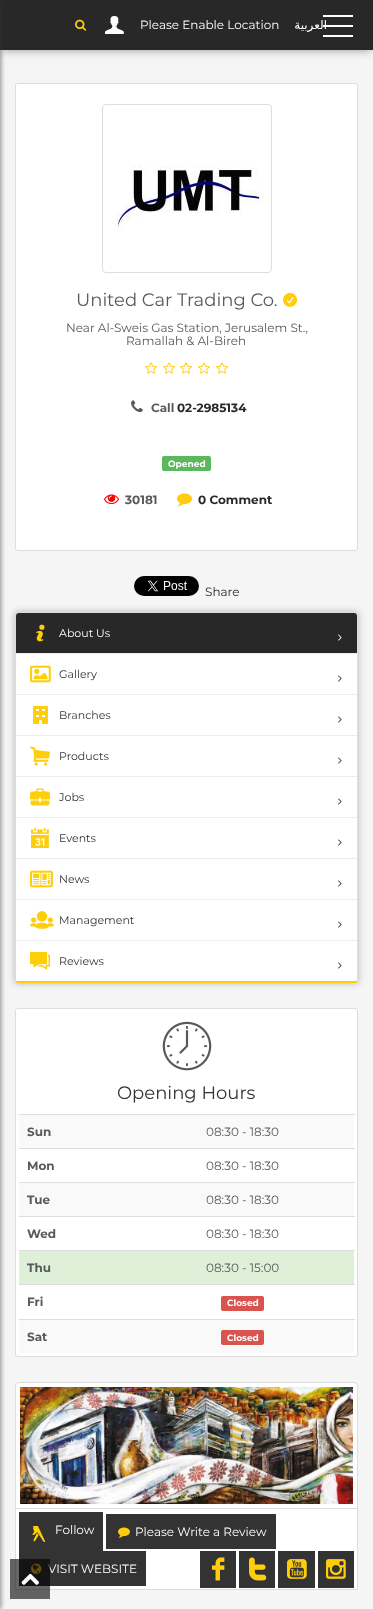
async function draw(canvas) {
	canvas.width = 373;
	canvas.height = 1609;
	const c = canvas.getContext('2d');
	c.miterLimit = 4;
	c.fontKerning = 'normal';
	async function loadImage(src) {
		const img = new Image();
		img.src = src;
		await img.decode();
		return img;
	}

	c.fillStyle = '#f5f5f5';
	c.fillRect(0, 0, 373, 1609);
	c.fillStyle = '#00000069';
	c.filter = 'blur(5px)';
	c.beginPath();
	c.rect(2, 4, 369, 46);
	c.fill();
	c.filter = 'none';
	c.fillStyle = '#282828';
	c.fillRect(0, 0, 373, 50);
	c.fillStyle = '#3232328c';
	c.filter = 'blur(2.5px)';
	c.beginPath();
	c.rect(-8, 0, 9, 1609);
	c.fill();
	c.filter = 'none';
	c.drawImage(await loadImage('img1.png'), 75, 19, 12, 12);
	c.drawImage(await loadImage('img2.png'), 105, 16, 19, 18);
	c.font = '12px Montserrat';
	c.fillStyle = '#fff';
	c.fillText('Please Enable Location', 140, 29);
	c.fillRect(323, 25, 30, 2);
	c.direction = 'rtl';
	c.font = '12px DejaVu Sans';
	c.fillText('العربية', 327, 29);
	c.fillRect(323, 15, 30, 2);
	c.fillRect(323, 35, 30, 2);
	c.beginPath();
	c.roundRect(15.5, 83.5, 342, 467, 2.5);
	c.fill();
	c.strokeStyle = '#ddd';
	c.stroke();
	c.beginPath();
	c.roundRect(102.5, 104.5, 169, 168, 3.5);
	c.stroke();
	c.drawImage(await loadImage('img3.png'), 115, 165, 152, 64);
	c.direction = 'ltr';
	c.font = '18px Montserrat';
	c.fillStyle = '#565a5c';
	c.fillText('United Car Trading Co.', 76, 306);
	c.drawImage(await loadImage('img4.png'), 283, 292, 14, 15);
	c.font = '12px Montserrat';
	c.fillText('Near Al-Sweis Gas Station, Jerusalem St.,', 66, 332);
	c.fillText('Ramallah & Al-Bireh', 126, 345);
	c.drawImage(await loadImage('img5.png'), 145, 362, 12, 12);
	c.drawImage(await loadImage('img5.png'), 163, 362, 12, 12);
	c.drawImage(await loadImage('img5.png'), 180, 362, 12, 12);
	c.drawImage(await loadImage('img5.png'), 198, 362, 12, 12);
	c.drawImage(await loadImage('img5.png'), 216, 362, 12, 12);
	c.drawImage(await loadImage('img6.png'), 131, 400, 12, 13);
	c.font = 'bold 12px Montserrat';
	c.fillText('Call', 151, 412);
	c.fillStyle = '#282828';
	c.fillText('02-2985134', 177, 412);
	c.fillStyle = '#5cb85c';
	c.beginPath();
	c.roundRect(162, 456, 49, 15, 2);
	c.fill();
	c.font = 'bold 9px Montserrat';
	c.fillStyle = '#fff';
	c.fillText('Opened', 168, 467);
	c.drawImage(await loadImage('img7.png'), 104, 494, 15, 11);
	c.font = 'bold 12px Montserrat';
	c.fillStyle = '#565a5c';
	c.fillText('30181', 125, 504);
	c.drawImage(await loadImage('img8.png'), 177, 493, 15, 14);
	c.fillStyle = '#282828';
	c.fillText('0 Comment', 198, 504);
	c.drawImage(await loadImage('img9.png'), 134, 576, 65, 20);
	c.font = '12px Montserrat';
	c.fillText('Share', 205, 596);
	c.fillStyle = '#00000033';
	c.filter = 'blur(3px)';
	c.beginPath();
	c.roundRect(14, 611, 345, 373, 4);
	c.fill();
	c.filter = 'none';
	c.fillStyle = '#fff';
	c.beginPath();
	c.moveTo(18, 613);
	c.lineTo(355, 613);
	c.bezierCurveTo(356, 613, 357, 614, 357, 615);
	c.lineTo(357, 980);
	c.bezierCurveTo(357, 981, 356, 981, 355, 981);
	c.lineTo(18, 981);
	c.bezierCurveTo(17, 981, 16, 981, 16, 980);
	c.lineTo(16, 615);
	c.bezierCurveTo(16, 614, 17, 613, 18, 613);
	c.closePath();
	c.fill();
	c.fillStyle = '#ddd';
	c.beginPath();
	c.moveTo(18, 612);
	c.lineTo(16, 613);
	c.lineTo(17, 614);
	c.lineTo(18, 613);
	c.lineTo(355, 613);
	c.lineTo(356, 614);
	c.lineTo(357, 613);
	c.lineTo(355, 612);
	c.closePath();
	c.fill();
	c.beginPath();
	c.moveTo(358, 980);
	c.lineTo(358, 615);
	c.lineTo(357, 613);
	c.lineTo(356, 614);
	c.lineTo(357, 615);
	c.lineTo(357, 981);
	c.lineTo(357, 982);
	c.closePath();
	c.fill();
	c.fillStyle = '#ffce08';
	c.beginPath();
	c.moveTo(18, 983);
	c.lineTo(357, 983);
	c.lineTo(357, 982);
	c.lineTo(357, 981);
	c.lineTo(355, 981);
	c.lineTo(18, 981);
	c.lineTo(16, 981);
	c.lineTo(16, 982);
	c.closePath();
	c.fill();
	c.fillStyle = '#ddd';
	c.beginPath();
	c.moveTo(15, 615);
	c.lineTo(15, 980);
	c.lineTo(16, 982);
	c.lineTo(16, 981);
	c.lineTo(16, 615);
	c.lineTo(17, 614);
	c.lineTo(16, 613);
	c.closePath();
	c.fill();
	c.fillStyle = '#ececec';
	c.fillRect(16, 653, 341, 1);
	c.fillStyle = '#282828';
	c.beginPath();
	c.roundRect(16, 613, 341, 40, [3, 3, 0, 0]);
	c.fill();
	c.drawImage(await loadImage('img10.png'), 36, 624, 9, 18);
	c.font = '11px Montserrat';
	c.fillStyle = '#fff';
	c.fillText('About Us', 59, 637);
	c.drawImage(await loadImage('img11.png'), 338, 634, 4, 7);
	c.fillStyle = '#ececec';
	c.fillRect(16, 694, 341, 1);
	c.drawImage(await loadImage('img12.png'), 30, 665, 21, 18);
	c.fillStyle = '#333';
	c.fillText('Gallery', 59, 678);
	c.drawImage(await loadImage('img13.png'), 338, 675, 4, 7);
	c.fillStyle = '#ececec';
	c.fillRect(16, 735, 341, 1);
	c.drawImage(await loadImage('img14.png'), 33, 706, 15, 18);
	c.fillStyle = '#333';
	c.fillText('Branches', 59, 719);
	c.drawImage(await loadImage('img13.png'), 338, 716, 4, 7);
	c.fillStyle = '#ececec';
	c.fillRect(16, 776, 341, 1);
	c.drawImage(await loadImage('img15.png'), 30, 746, 20, 20);
	c.fillStyle = '#333';
	c.fillText('Products', 59, 760);
	c.drawImage(await loadImage('img13.png'), 338, 757, 4, 7);
	c.fillStyle = '#ececec';
	c.fillRect(16, 817, 341, 1);
	c.drawImage(await loadImage('img16.png'), 30, 788, 20, 18);
	c.fillStyle = '#333';
	c.fillText('Jobs', 59, 801);
	c.drawImage(await loadImage('img13.png'), 338, 798, 4, 7);
	c.fillStyle = '#ececec';
	c.fillRect(16, 858, 341, 1);
	c.drawImage(await loadImage('img17.png'), 31, 828, 18, 20);
	c.fillStyle = '#333';
	c.fillText('Events', 59, 842);
	c.drawImage(await loadImage('img13.png'), 338, 839, 4, 7);
	c.fillStyle = '#ececec';
	c.fillRect(16, 899, 341, 1);
	c.drawImage(await loadImage('img18.png'), 30, 870, 23, 18);
	c.fillStyle = '#333';
	c.fillText('News', 59, 883);
	c.drawImage(await loadImage('img13.png'), 338, 880, 4, 7);
	c.fillStyle = '#ececec';
	c.fillRect(16, 940, 341, 1);
	c.drawImage(await loadImage('img19.png'), 30, 911, 24, 18);
	c.fillStyle = '#333';
	c.fillText('Management', 59, 924);
	c.drawImage(await loadImage('img13.png'), 338, 921, 4, 7);
	c.drawImage(await loadImage('img20.png'), 30, 952, 20, 18);
	c.fillText('Reviews', 59, 965);
	c.drawImage(await loadImage('img13.png'), 338, 962, 4, 7);
	c.fillStyle = '#fff';
	c.beginPath();
	c.roundRect(15.5, 1008.5, 342, 348, 2.5);
	c.fill();
	c.stroke();
	c.drawImage(await loadImage('img21.png'), 162, 1021, 50, 50);
	c.font = '18px Montserrat';
	c.fillStyle = '#333';
	c.fillText('Opening Hours', 117, 1099);
	c.fillStyle = '#f9f9f9';
	c.fillRect(19, 1115, 335, 33);
	c.font = 'bold 12px Montserrat';
	c.fillStyle = '#565a5c';
	c.fillText('Sun', 27, 1136);
	c.fillStyle = '#ddd';
	c.fillRect(19, 1114, 336, 1);
	c.font = '12px Montserrat';
	c.fillStyle = '#565a5c';
	c.fillText('08:30 - 18:30', 206, 1136);
	c.font = 'bold 12px Montserrat';
	c.fillText('Mon', 27, 1170);
	c.fillStyle = '#ddd';
	c.fillRect(19, 1148, 336, 1);
	c.font = '12px Montserrat';
	c.fillStyle = '#565a5c';
	c.fillText('08:30 - 18:30', 206, 1170);
	c.fillStyle = '#f9f9f9';
	c.fillRect(19, 1183, 335, 33);
	c.font = 'bold 12px Montserrat';
	c.fillStyle = '#565a5c';
	c.fillText('Tue', 27, 1204);
	c.fillStyle = '#ddd';
	c.fillRect(19, 1182, 336, 1);
	c.font = '12px Montserrat';
	c.fillStyle = '#565a5c';
	c.fillText('08:30 - 18:30', 206, 1204);
	c.font = 'bold 12px Montserrat';
	c.fillText('Wed', 27, 1238);
	c.fillStyle = '#ddd';
	c.fillRect(19, 1216, 336, 1);
	c.font = '12px Montserrat';
	c.fillStyle = '#565a5c';
	c.fillText('08:30 - 18:30', 206, 1238);
	c.fillStyle = '#dff0d8';
	c.fillRect(19, 1251, 335, 33);
	c.font = 'bold 12px Montserrat';
	c.fillStyle = '#565a5c';
	c.fillText('Thu', 27, 1272);
	c.fillStyle = '#ddd';
	c.fillRect(19, 1250, 336, 1);
	c.font = '12px Montserrat';
	c.fillStyle = '#565a5c';
	c.fillText('08:30 - 15:00', 206, 1272);
	c.font = 'bold 12px Montserrat';
	c.fillText('Fri', 27, 1306);
	c.fillStyle = '#ddd';
	c.fillRect(19, 1284, 336, 1);
	c.fillStyle = '#d9534f';
	c.beginPath();
	c.roundRect(221, 1296, 43, 15, 2);
	c.fill();
	c.font = 'bold 9px Montserrat';
	c.fillStyle = '#fff';
	c.fillText('Closed', 227, 1306);
	c.fillStyle = '#f9f9f9';
	c.fillRect(19, 1320, 335, 33);
	c.font = 'bold 12px Montserrat';
	c.fillStyle = '#565a5c';
	c.fillText('Sat', 27, 1341);
	c.fillStyle = '#ddd';
	c.fillRect(19, 1319, 336, 1);
	c.fillStyle = '#d9534f';
	c.beginPath();
	c.roundRect(221, 1330, 43, 15, 2);
	c.fill();
	c.font = 'bold 9px Montserrat';
	c.fillStyle = '#fff';
	c.fillText('Closed', 227, 1341);
	c.beginPath();
	c.roundRect(15.5, 1382.5, 342, 126, [3.5, 3.5, 0, 0]);
	c.fill();
	c.stroke();
	c.drawImage(await loadImage('img22.png'), 20, 1387, 333, 117);
	for (const [x, y, w, h, color] of [
		[16, 1509, 341, 80, '#fff'],
		[357, 1509, 1, 81, '#ddd'],
		[15, 1589, 343, 1, '#ddd'],
		[15, 1509, 1, 81, '#ddd'],
		[19, 1512, 84, 39, '#333'],
	]) {
		c.fillStyle = color;
		c.fillRect(x, y, w, h);
	}
	c.drawImage(await loadImage('img23.png'), 32, 1526, 14, 16);
	c.font = '12px Montserrat';
	c.fillStyle = '#fff';
	c.fillText('Follow', 55, 1534);
	c.fillStyle = '#333';
	c.fillRect(106, 1514, 170, 35);
	c.drawImage(await loadImage('img24.png'), 118, 1527, 12, 11);
	c.fillStyle = '#fff';
	c.fillText('Please Write a Review', 135, 1536);
	c.fillStyle = '#333';
	c.fillRect(19, 1551, 127, 35);
	c.drawImage(await loadImage('img25.png'), 31, 1563, 11, 11);
	c.fillStyle = '#fff';
	c.fillText('VISIT WEBSITE', 48, 1573);
	c.fillStyle = '#333';
	c.fillRect(200, 1551, 36, 37);
	c.drawImage(await loadImage('img26.png'), 212, 1557, 13, 24);
	c.fillRect(239, 1551, 36, 37);
	c.drawImage(await loadImage('img27.png'), 249, 1557, 18, 24);
	c.fillRect(278, 1551, 37, 37);
	c.drawImage(await loadImage('img28.png'), 287, 1559, 20, 20);
	c.fillRect(318, 1551, 36, 37);
	c.drawImage(await loadImage('img29.png'), 326, 1559, 20, 20);
	c.fillStyle = '#00000099';
	c.fillRect(10, 1559, 40, 40);
	c.drawImage(await loadImage('img30.png'), 21, 1573, 18, 12);
}

draw(document.querySelector('canvas'));
